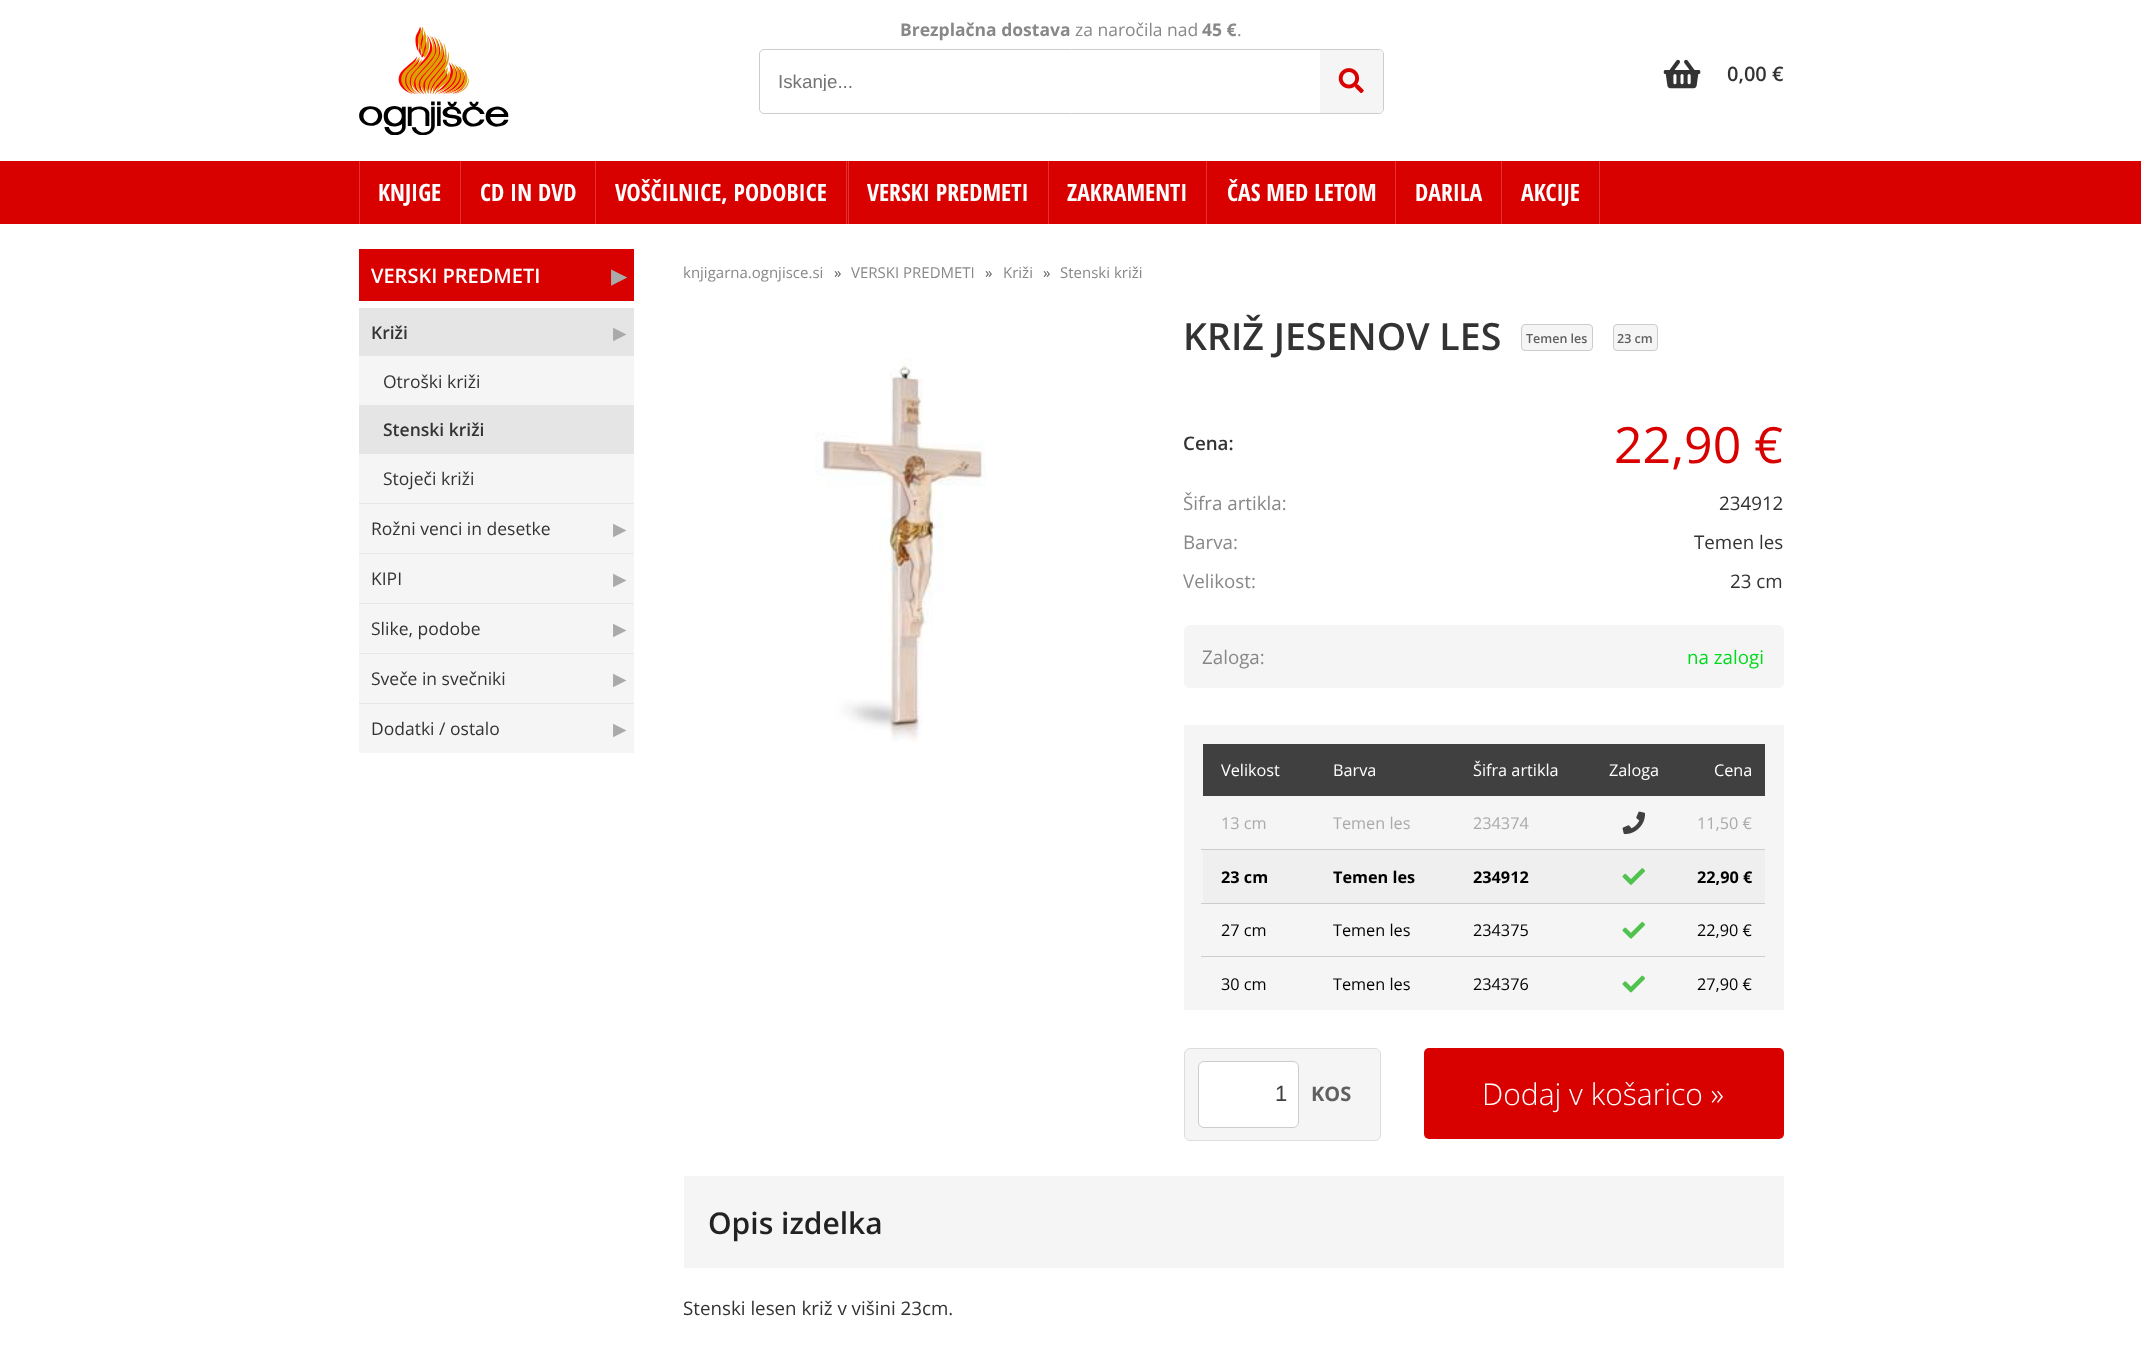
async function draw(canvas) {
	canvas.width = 2141;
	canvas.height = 1348;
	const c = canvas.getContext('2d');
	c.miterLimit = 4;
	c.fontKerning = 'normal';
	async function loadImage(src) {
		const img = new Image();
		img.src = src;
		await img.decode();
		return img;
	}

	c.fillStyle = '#fff';
	c.fillRect(0, 0, 2141, 1348);
	c.drawImage(await loadImage('img1.png'), 359, 27, 150, 108);
	c.beginPath();
	c.roundRect(759.5, 49.5, 624, 64, 4.5);
	c.strokeStyle = '#ccc';
	c.stroke();
	c.save();
	c.beginPath();
	c.rect(779, 70, 541, 21);
	c.clip();
	c.font = '18.75px Liberation Sans';
	c.fillStyle = '#757575';
	c.fillText('Iskanje...', 778, 88);
	c.restore();
	c.fillStyle = '#f5f5f5';
	c.beginPath();
	c.roundRect(1320, 50, 63, 63, [0, 4, 4, 0]);
	c.fill();
	c.drawImage(await loadImage('img2.png'), 1338, 68, 26, 26);
	c.font = 'bold 17.5px Open Sans';
	c.fillStyle = '#888';
	c.fillText('Brezplačna dostava', 900, 36);
	c.font = '17.5px Open Sans';
	c.fillText('za naročila nad', 1075, 36);
	c.font = 'bold 17.5px Open Sans';
	c.fillText('45 €', 1202, 36);
	c.font = '17.5px Open Sans';
	c.fillText('.', 1237, 36);
	c.drawImage(await loadImage('img3.png'), 1663, 59, 38, 30);
	c.font = '600 20px Open Sans';
	c.fillStyle = '#333';
	c.fillText('0,00 €', 1727, 81);
	c.fillStyle = '#d90000';
	c.fillRect(0, 161, 2141, 63);
	c.fillStyle = '#e13333';
	c.fillRect(359, 161, 1, 63);
	c.font = 'bold 23.75px Open Sans Condensed';
	c.fillStyle = '#fff';
	c.fillText('KNJIGE', 378, 201);
	c.fillStyle = '#e13333';
	c.fillRect(460, 161, 1, 63);
	c.fillStyle = '#fff';
	c.fillText('CD IN DVD', 480, 201);
	c.fillStyle = '#e13333';
	c.fillRect(595, 161, 1, 63);
	c.fillStyle = '#fff';
	c.fillText('VOŠČILNICE, PODOBICE', 615, 201);
	c.fillStyle = '#e13333';
	c.fillRect(846, 161, 1, 63);
	c.fillRect(848, 161, 1, 63);
	c.fillStyle = '#fff';
	c.fillText('VERSKI PREDMETI', 867, 201);
	c.fillStyle = '#e13333';
	c.fillRect(1048, 161, 1, 63);
	c.fillStyle = '#fff';
	c.fillText('ZAKRAMENTI', 1067, 201);
	c.fillStyle = '#e13333';
	c.fillRect(1206, 161, 1, 63);
	c.fillStyle = '#fff';
	c.fillText('ČAS MED LETOM', 1227, 201);
	c.fillStyle = '#e13333';
	c.fillRect(1395, 161, 1, 63);
	c.fillStyle = '#fff';
	c.fillText('DARILA', 1415, 201);
	c.fillStyle = '#e13333';
	c.fillRect(1599, 161, 1, 63);
	c.fillRect(1501, 161, 1, 63);
	c.fillStyle = '#fff';
	c.fillText('AKCIJE', 1521, 201);
	c.fillStyle = '#d90000';
	c.fillRect(359, 249, 275, 52);
	c.font = '600 20px Open Sans';
	c.fillStyle = '#fff';
	c.fillText('VERSKI PREDMETI', 371, 283);
	c.font = 'bold 20px DejaVu Sans';
	c.fillStyle = '#aaa';
	c.fillText('▶', 611, 283);
	c.fillStyle = '#f5f5f5';
	c.fillRect(359, 356, 275, 397);
	c.fillStyle = '#e5e5e5';
	c.fillRect(359, 308, 275, 48);
	c.font = '600 17.5px Open Sans';
	c.fillStyle = '#333';
	c.fillText('Križi', 371, 339);
	c.font = '17.5px DejaVu Sans';
	c.fillStyle = '#aaa';
	c.fillText('▶', 613, 339);
	c.font = '17.5px Open Sans';
	c.fillStyle = '#333';
	c.fillText('Otroški križi', 383, 388);
	c.fillStyle = '#e5e5e5';
	c.fillRect(359, 405, 275, 49);
	c.font = '600 17.5px Open Sans';
	c.fillStyle = '#333';
	c.fillText('Stenski križi', 383, 436);
	c.font = '17.5px Open Sans';
	c.fillText('Stoječi križi', 383, 485);
	c.fillStyle = '#e8e8e8';
	c.fillRect(359, 503, 275, 1);
	c.fillStyle = '#333';
	c.fillText('Rožni venci in desetke', 371, 535);
	c.font = '17.5px DejaVu Sans';
	c.fillStyle = '#aaa';
	c.fillText('▶', 613, 535);
	c.fillStyle = '#e8e8e8';
	c.fillRect(359, 553, 275, 1);
	c.font = '17.5px Open Sans';
	c.fillStyle = '#333';
	c.fillText('KIPI', 371, 585);
	c.font = '17.5px DejaVu Sans';
	c.fillStyle = '#aaa';
	c.fillText('▶', 613, 585);
	c.fillStyle = '#e8e8e8';
	c.fillRect(359, 603, 275, 1);
	c.font = '17.5px Open Sans';
	c.fillStyle = '#333';
	c.fillText('Slike, podobe', 371, 635);
	c.font = '17.5px DejaVu Sans';
	c.fillStyle = '#aaa';
	c.fillText('▶', 613, 635);
	c.fillStyle = '#e8e8e8';
	c.fillRect(359, 653, 275, 1);
	c.font = '17.5px Open Sans';
	c.fillStyle = '#333';
	c.fillText('Sveče in svečniki', 371, 685);
	c.font = '17.5px DejaVu Sans';
	c.fillStyle = '#aaa';
	c.fillText('▶', 613, 685);
	c.fillStyle = '#e8e8e8';
	c.fillRect(359, 703, 275, 1);
	c.font = '17.5px Open Sans';
	c.fillStyle = '#333';
	c.fillText('Dodatki / ostalo', 371, 735);
	c.font = '17.5px DejaVu Sans';
	c.fillStyle = '#aaa';
	c.fillText('▶', 613, 735);
	c.font = '15px Open Sans';
	c.fillStyle = '#888';
	c.fillText('knjigarna.ognjisce.si', 683, 278);
	c.fillStyle = '#606060';
	c.fillText('»', 834, 278);
	c.fillStyle = '#888';
	c.fillText('VERSKI PREDMETI', 851, 278);
	c.fillStyle = '#606060';
	c.fillText('»', 985, 278);
	c.fillStyle = '#888';
	c.fillText('Križi', 1003, 278);
	c.fillStyle = '#606060';
	c.fillText('»', 1043, 278);
	c.fillStyle = '#888';
	c.fillText('Stenski križi', 1060, 278);
	c.font = '600 37.5px Open Sans';
	c.fillStyle = '#333';
	c.fillText('KRIŽ JESENOV LES', 1183, 350);
	c.fillStyle = '#f5f5f5';
	c.beginPath();
	c.roundRect(1521.5, 324.5, 71, 26, 3.5);
	c.fill();
	c.stroke();
	c.font = '600 12.5px Open Sans';
	c.fillStyle = '#606060';
	c.fillText('Temen les', 1526, 343);
	c.fillStyle = '#f5f5f5';
	c.beginPath();
	c.roundRect(1613.5, 324.5, 44, 26, 3.5);
	c.fill();
	c.stroke();
	c.fillStyle = '#606060';
	c.fillText('23 cm', 1617, 343);
	c.drawImage(await loadImage('img4.png'), 815, 358, 171, 384);
	c.font = '600 18.75px Open Sans';
	c.fillStyle = '#333';
	c.fillText('Cena:', 1183, 450);
	c.font = '50px Open Sans';
	c.fillStyle = '#d90000';
	c.fillText('22,90 €', 1614, 463);
	c.font = '18.75px Open Sans';
	c.fillStyle = '#888';
	c.fillText('Šifra artikla:', 1183, 510);
	c.fillStyle = '#333';
	c.fillText('234912', 1719, 510);
	c.fillStyle = '#888';
	c.fillText('Barva:', 1183, 549);
	c.fillStyle = '#333';
	c.fillText('Temen les', 1694, 549);
	c.fillStyle = '#888';
	c.fillText('Velikost:', 1183, 588);
	c.fillStyle = '#333';
	c.fillText('23 cm', 1730, 588);
	c.fillStyle = '#f5f5f5';
	c.beginPath();
	c.roundRect(1184, 625, 600, 63, 6);
	c.fill();
	c.fillStyle = '#888';
	c.fillText('Zaloga:', 1202, 664);
	c.fillStyle = '#00db1d';
	c.fillText('na zalogi', 1687, 664);
	c.fillStyle = '#f5f5f5';
	c.fillRect(1184, 725, 600, 285);
	c.fillStyle = '#404040';
	c.fillRect(1203, 744, 562, 52);
	c.font = '16.25px Open Sans';
	c.fillStyle = '#fff';
	for (const [text, x, y] of [
		['Velikost', 1221, 776],
		['Barva', 1333, 776],
		['Šifra artikla', 1473, 776],
		['Zaloga', 1609, 776],
		['Cena', 1714, 776],
	]) {
		c.fillText(text, x, y);
	}
	c.fillStyle = '#ccc';
	c.fillRect(1201, 849, 564, 1);
	c.fillStyle = '#aaa';
	for (const [text, x, y] of [
		['13 cm', 1221, 829],
		['Temen les', 1333, 829],
		['234374', 1473, 829],
	]) {
		c.fillText(text, x, y);
	}
	c.drawImage(await loadImage('img5.png'), 1622, 811, 23, 24);
	c.fillText('11,50 €', 1697, 829);
	c.fillStyle = '#efefef';
	c.fillRect(1203, 850, 562, 53);
	c.fillStyle = '#ccc';
	c.fillRect(1201, 903, 564, 1);
	c.font = 'bold 16.25px Open Sans';
	c.fillStyle = '#000';
	for (const [text, x, y] of [
		['23 cm', 1221, 883],
		['Temen les', 1333, 883],
		['234912', 1473, 883],
	]) {
		c.fillText(text, x, y);
	}
	c.drawImage(await loadImage('img6.png'), 1622, 868, 23, 17);
	c.fillText('22,90 €', 1697, 883);
	c.fillStyle = '#ccc';
	c.fillRect(1201, 956, 564, 1);
	c.font = '16.25px Open Sans';
	c.fillStyle = '#000';
	for (const [text, x, y] of [
		['27 cm', 1221, 936],
		['Temen les', 1333, 936],
		['234375', 1473, 936],
	]) {
		c.fillText(text, x, y);
	}
	c.drawImage(await loadImage('img7.png'), 1622, 921, 23, 18);
	for (const [text, x, y] of [
		['22,90 €', 1697, 936],
		['30 cm', 1221, 990],
		['Temen les', 1333, 990],
		['234376', 1473, 990],
	]) {
		c.fillText(text, x, y);
	}
	c.drawImage(await loadImage('img8.png'), 1622, 975, 23, 18);
	c.fillText('27,90 €', 1697, 990);
	c.fillStyle = '#f5f5f5';
	c.beginPath();
	c.roundRect(1184.5, 1048.5, 196, 92, 5.5);
	c.fill();
	c.strokeStyle = '#ddd';
	c.stroke();
	c.fillStyle = '#fff';
	c.beginPath();
	c.roundRect(1198.5, 1061.5, 100, 66, 5.5);
	c.fill();
	c.strokeStyle = '#ccc';
	c.stroke();
	c.font = '22px Liberation Sans';
	c.fillStyle = '#404040';
	c.fillText('1', 1275, 1101);
	c.font = 'bold 20px Open Sans';
	c.fillStyle = '#606060';
	c.fillText('KOS', 1311, 1101);
	c.fillStyle = '#d90000';
	c.beginPath();
	c.roundRect(1424, 1048, 360, 91, 5);
	c.fill();
	c.font = '300 30px Open Sans';
	c.fillStyle = '#fff';
	c.fillText('Dodaj v košarico »', 1482, 1105);
	c.fillStyle = '#f5f5f5';
	c.fillRect(684, 1176, 1100, 92);
	c.font = '600 30px Open Sans';
	c.fillStyle = '#222';
	c.fillText('Opis izdelka', 708, 1234);
	c.font = '18.75px Open Sans';
	c.fillStyle = '#333';
	c.fillText('Stenski lesen križ v višini 23cm.', 683, 1315);
}

draw(document.querySelector('canvas'));
